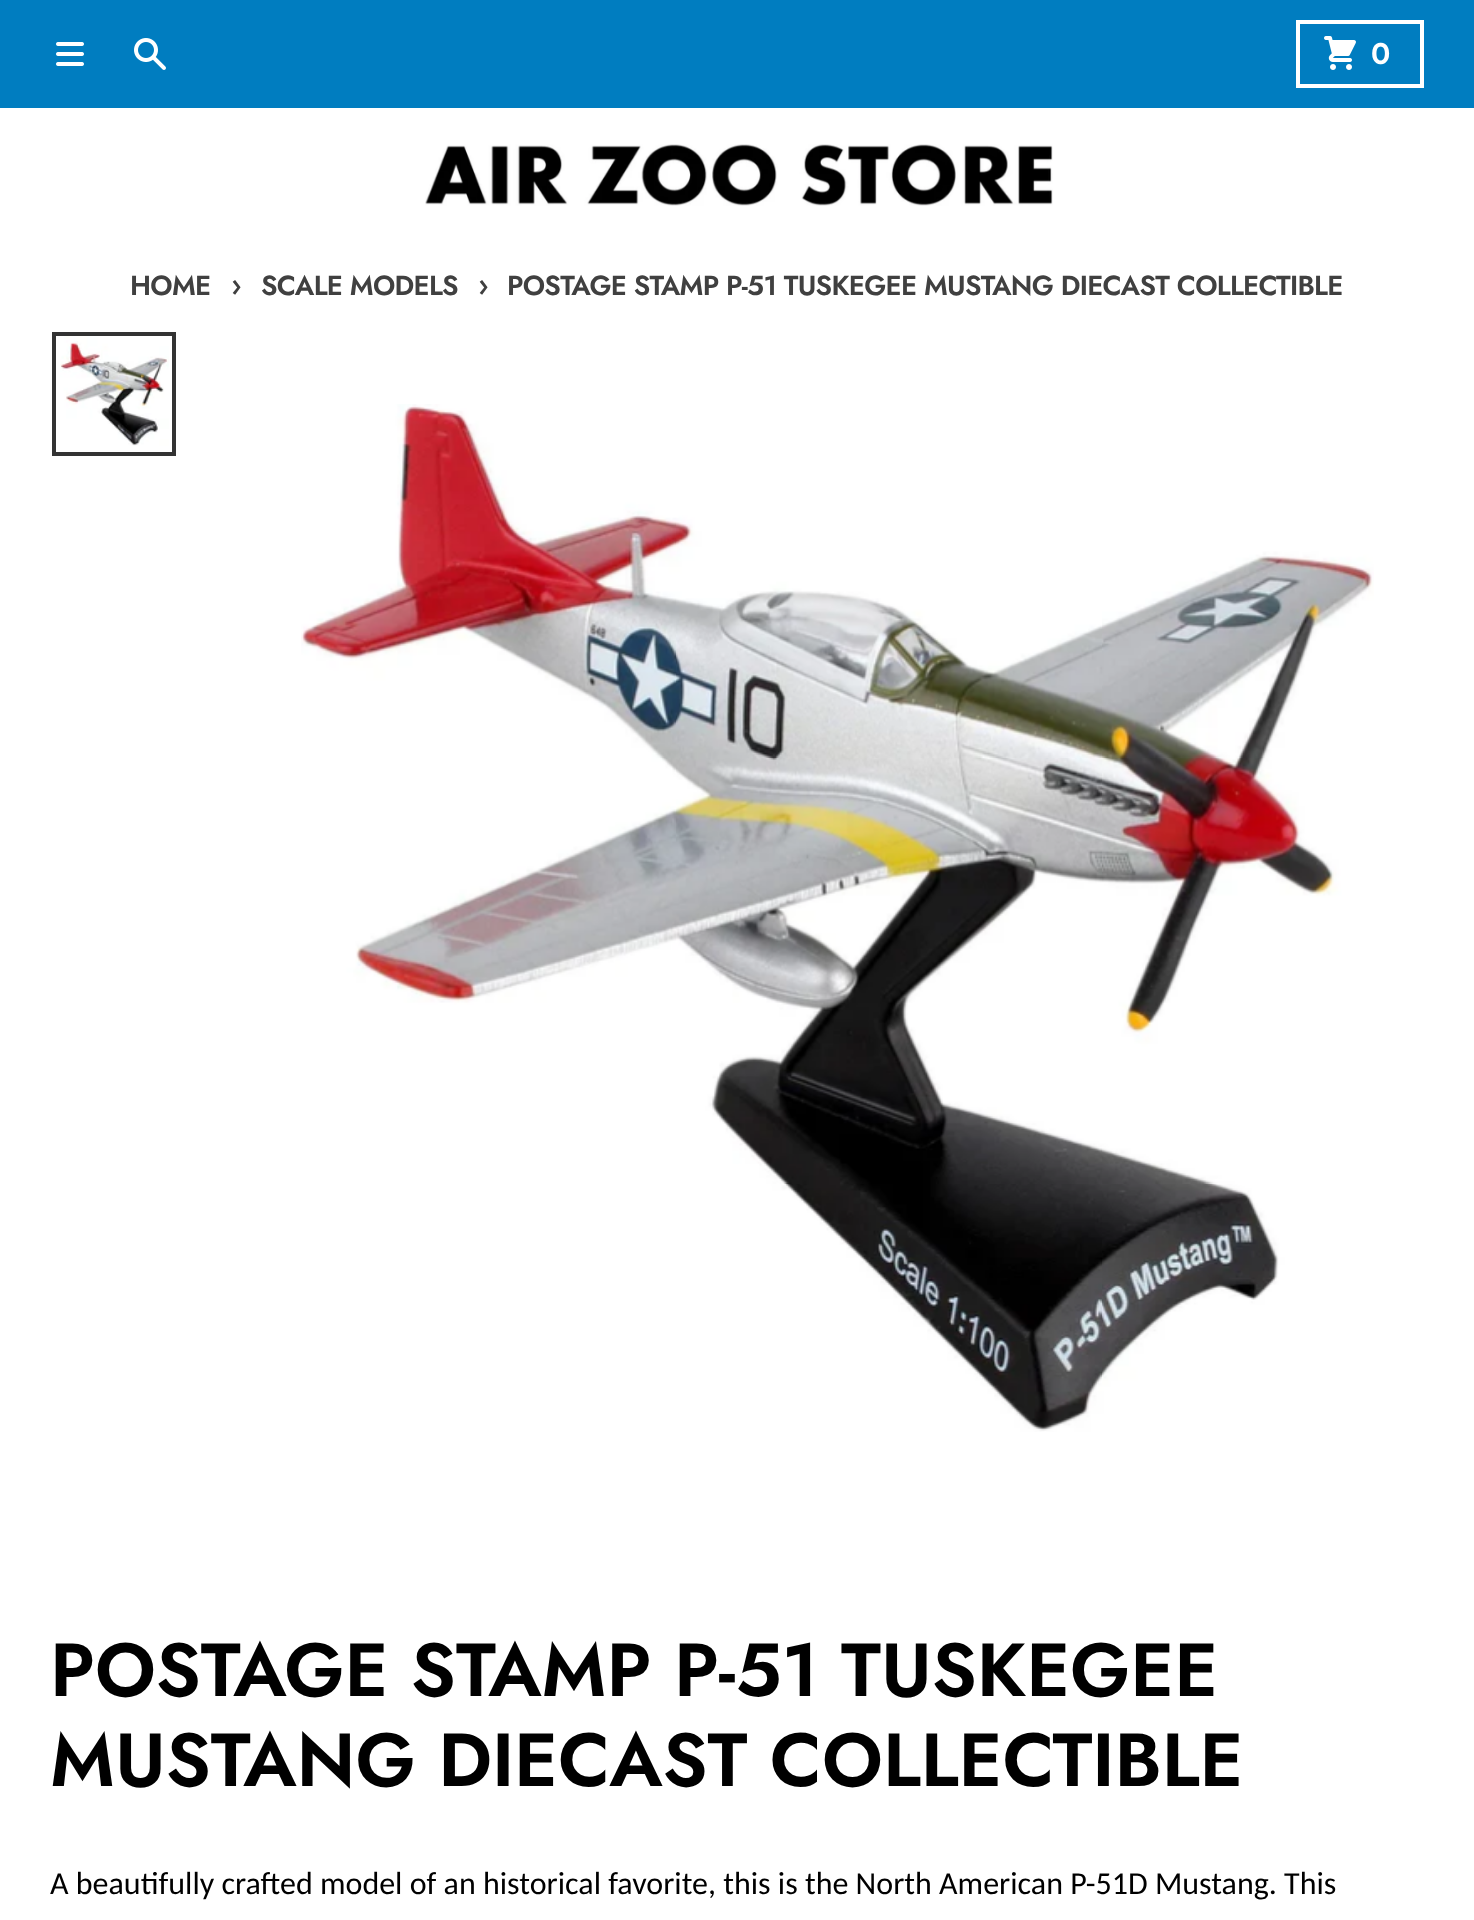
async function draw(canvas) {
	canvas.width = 1474;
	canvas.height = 1920;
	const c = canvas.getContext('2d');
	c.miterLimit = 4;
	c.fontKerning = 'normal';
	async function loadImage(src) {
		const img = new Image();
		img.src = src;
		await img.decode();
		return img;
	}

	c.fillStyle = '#007dc0';
	c.fillRect(0, 0, 1474, 1920);
	c.drawImage(await loadImage('img1.png'), 56, 42, 28, 24);
	c.drawImage(await loadImage('img2.png'), 134, 38, 32, 32);
	c.strokeStyle = '#fff';
	c.lineWidth = 4;
	c.strokeRect(1298, 22, 124, 64);
	c.drawImage(await loadImage('img3.png'), 1324, 36, 32, 34);
	c.font = '600 30px Jost';
	c.fillStyle = '#fff';
	c.fillText('0', 1371, 64);
	c.fillRect(0, 108, 1474, 1812);
	c.drawImage(await loadImage('img4.png'), 425, 144, 628, 62);
	c.letterSpacing = '-0.7px';
	c.font = '600 27.5px Jost';
	c.fillStyle = '#404040';
	c.fillText('HOME', 130, 295);
	c.font = '600 30px Jost';
	c.fillText('›', 231, 295);
	c.font = '600 27.5px Jost';
	c.fillText('SCALE MODELS', 261, 295);
	c.font = '600 30px Jost';
	c.fillText('›', 478, 295);
	c.font = '600 27.5px Jost';
	c.fillText('POSTAGE STAMP P-51 TUSKEGEE MUSTANG DIECAST COLLECTIBLE', 507, 295);
	c.strokeStyle = '#333';
	c.strokeRect(54, 334, 120, 120);
	c.drawImage(await loadImage('img5.png'), 60, 336, 109, 110);
	c.drawImage(await loadImage('img6.png'), 301, 404, 1073, 1028);
	c.letterSpacing = '0px';
	c.font = '600 75px Jost';
	c.fillStyle = '#000';
	c.fillText('POSTAGE STAMP P-51 TUSKEGEE', 50, 1696);
	c.fillText('MUSTANG DIECAST COLLECTIBLE', 50, 1786);
	c.font = '32px Carlito';
	c.fillText('A beautifully crafted model of an historical favorite, this is the North American P-51D Mustang. This', 50, 1894);
}

draw(document.querySelector('canvas'));
